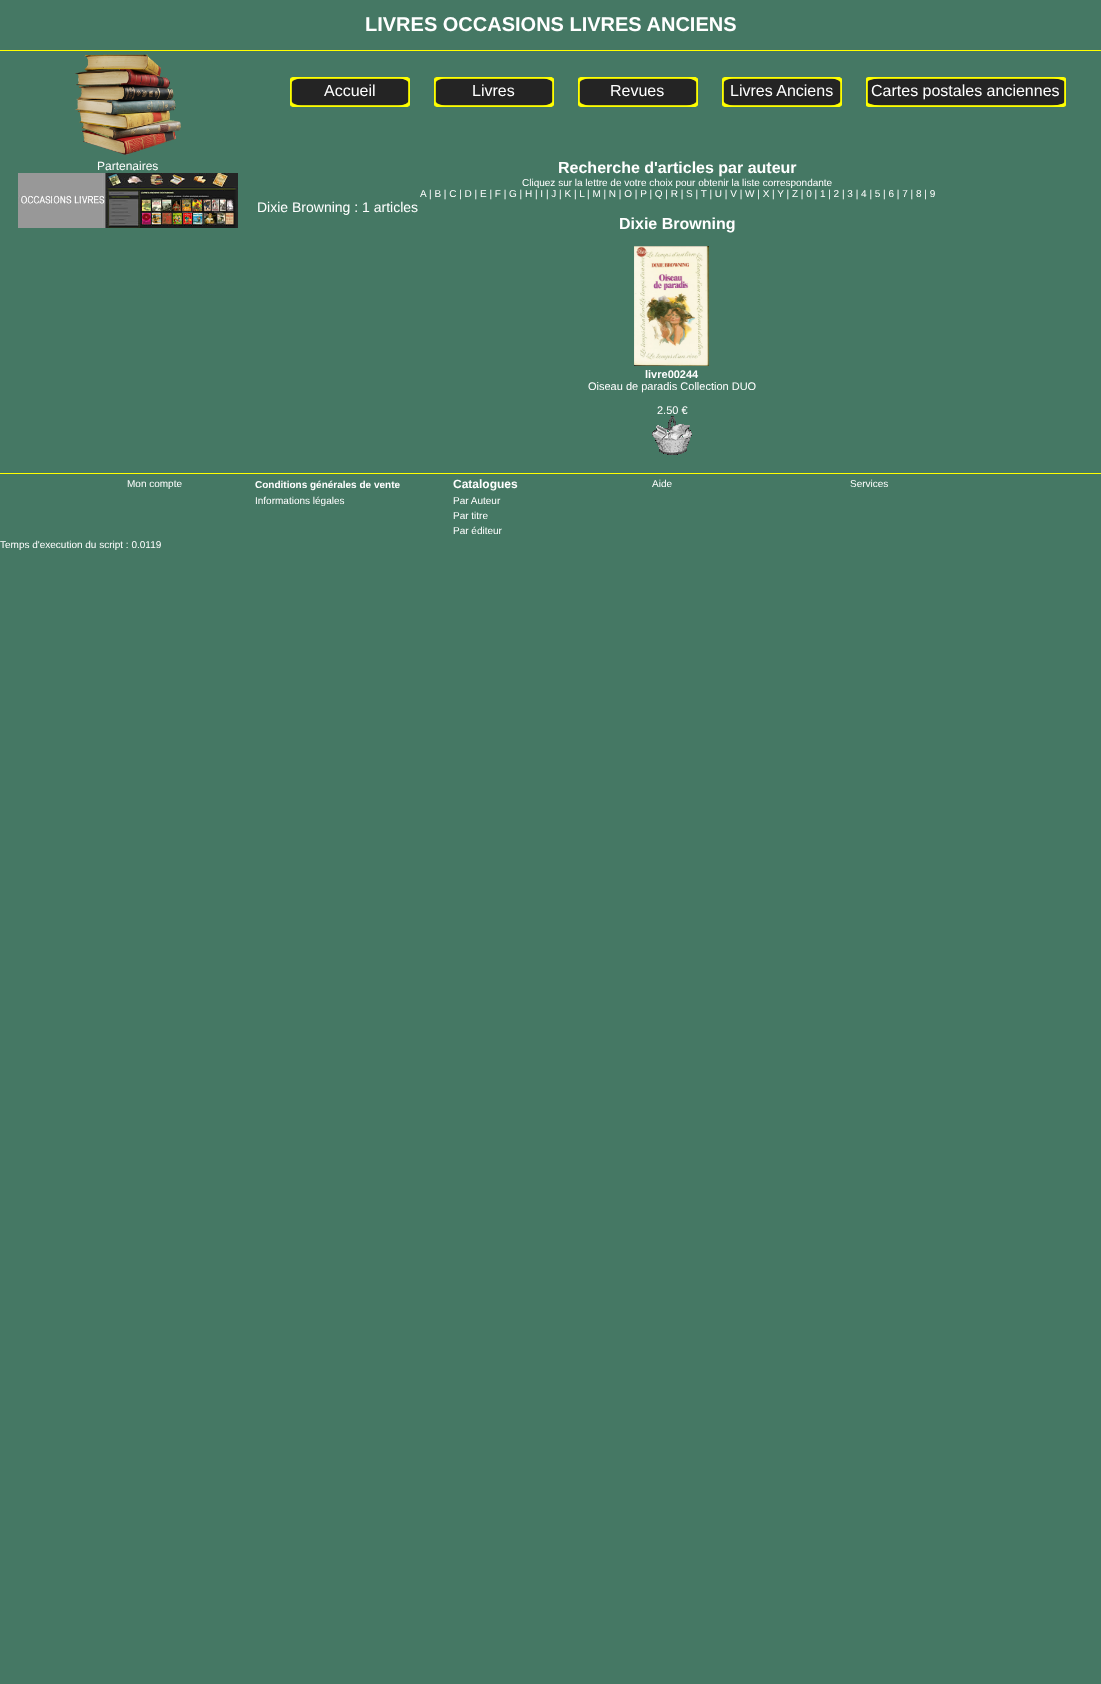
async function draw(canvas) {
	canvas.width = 1101;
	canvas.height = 1684;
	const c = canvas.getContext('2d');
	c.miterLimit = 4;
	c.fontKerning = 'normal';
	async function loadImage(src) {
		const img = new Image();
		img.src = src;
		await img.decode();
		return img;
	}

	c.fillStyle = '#457864';
	c.fillRect(0, 0, 1101, 1684);
	c.font = 'bold 20px Liberation Sans';
	c.fillStyle = '#fff';
	c.fillText('LIVRES OCCASIONS LIVRES ANCIENS', 365, 31);
	c.fillStyle = '#ff0';
	c.fillRect(0, 50, 1101, 1);
	c.drawImage(await loadImage('img1.png'), 75, 54, 106, 101);
	c.drawImage(await loadImage('img2.png'), 290, 77, 120, 30);
	c.font = '16px Liberation Sans';
	c.fillStyle = '#fff';
	c.fillText('Accueil', 324, 96);
	c.drawImage(await loadImage('img2.png'), 434, 77, 120, 30);
	c.fillText('Livres', 472, 96);
	c.drawImage(await loadImage('img2.png'), 578, 77, 120, 30);
	c.fillText('Revues', 610, 96);
	c.drawImage(await loadImage('img2.png'), 722, 77, 120, 30);
	c.fillText('Livres Anciens', 730, 96);
	c.drawImage(await loadImage('img3.png'), 866, 77, 200, 30);
	c.fillText('Cartes postales anciennes', 871, 96);
	c.font = '12px Liberation Sans';
	c.fillText('Partenaires', 97, 170);
	c.drawImage(await loadImage('img4.png'), 18, 173, 220, 55);
	c.font = 'bold 16px Liberation Sans';
	c.fillText('Recherche d\'articles par auteur', 558, 173);
	c.font = '10px Liberation Sans';
	for (const [text, x, y] of [
		['Cliquez sur la lettre de votre choix pour obtenir la liste correspondante', 522, 186],
		['A', 420, 197],
		['| B | C | D | E | F | G | H | I | J | K | L', 429, 197],
		['| M | N | O | P | Q | R | S | T | U | V | W | X | Y | Z | 0 | 1 | 2 | 3 | 4 | 5 | 6 | 7 | 8 | 9', 587, 197],
	]) {
		c.fillText(text, x, y);
	}
	c.font = '14px Liberation Sans';
	c.fillText('Dixie Browning : 1 articles', 257, 212);
	c.font = 'bold 16px Liberation Sans';
	c.fillText('Dixie Browning', 619, 229);
	c.drawImage(await loadImage('img5.png'), 634, 246, 75, 120);
	c.font = 'bold 11px Liberation Sans';
	c.fillText('livre00244', 645, 378);
	c.font = '11px Liberation Sans';
	c.fillText('Oiseau de paradis Collection DUO', 588, 390);
	c.fillText('2.50 €', 657, 414);
	c.drawImage(await loadImage('img6.png'), 652, 416, 40, 39);
	c.fillStyle = '#ff0';
	c.fillRect(0, 473, 1101, 1);
	c.font = '10px Liberation Sans';
	c.fillStyle = '#fff';
	c.fillText('Mon compte', 127, 487);
	c.font = 'bold 10px Liberation Sans';
	c.fillText('Conditions générales de vente', 255, 488);
	c.font = 'bold 12px Liberation Sans';
	c.fillText('Catalogues', 453, 488);
	c.font = '10px Liberation Sans';
	for (const [text, x, y] of [
		['Aide', 652, 487],
		['Services', 850, 487],
		['Informations légales', 255, 504],
		['Par Auteur', 453, 504],
		['Par titre', 453, 519],
		['Par éditeur', 453, 534],
		['Temps d\'execution du script : 0.0119', 0, 548],
	]) {
		c.fillText(text, x, y);
	}
}

draw(document.querySelector('canvas'));
